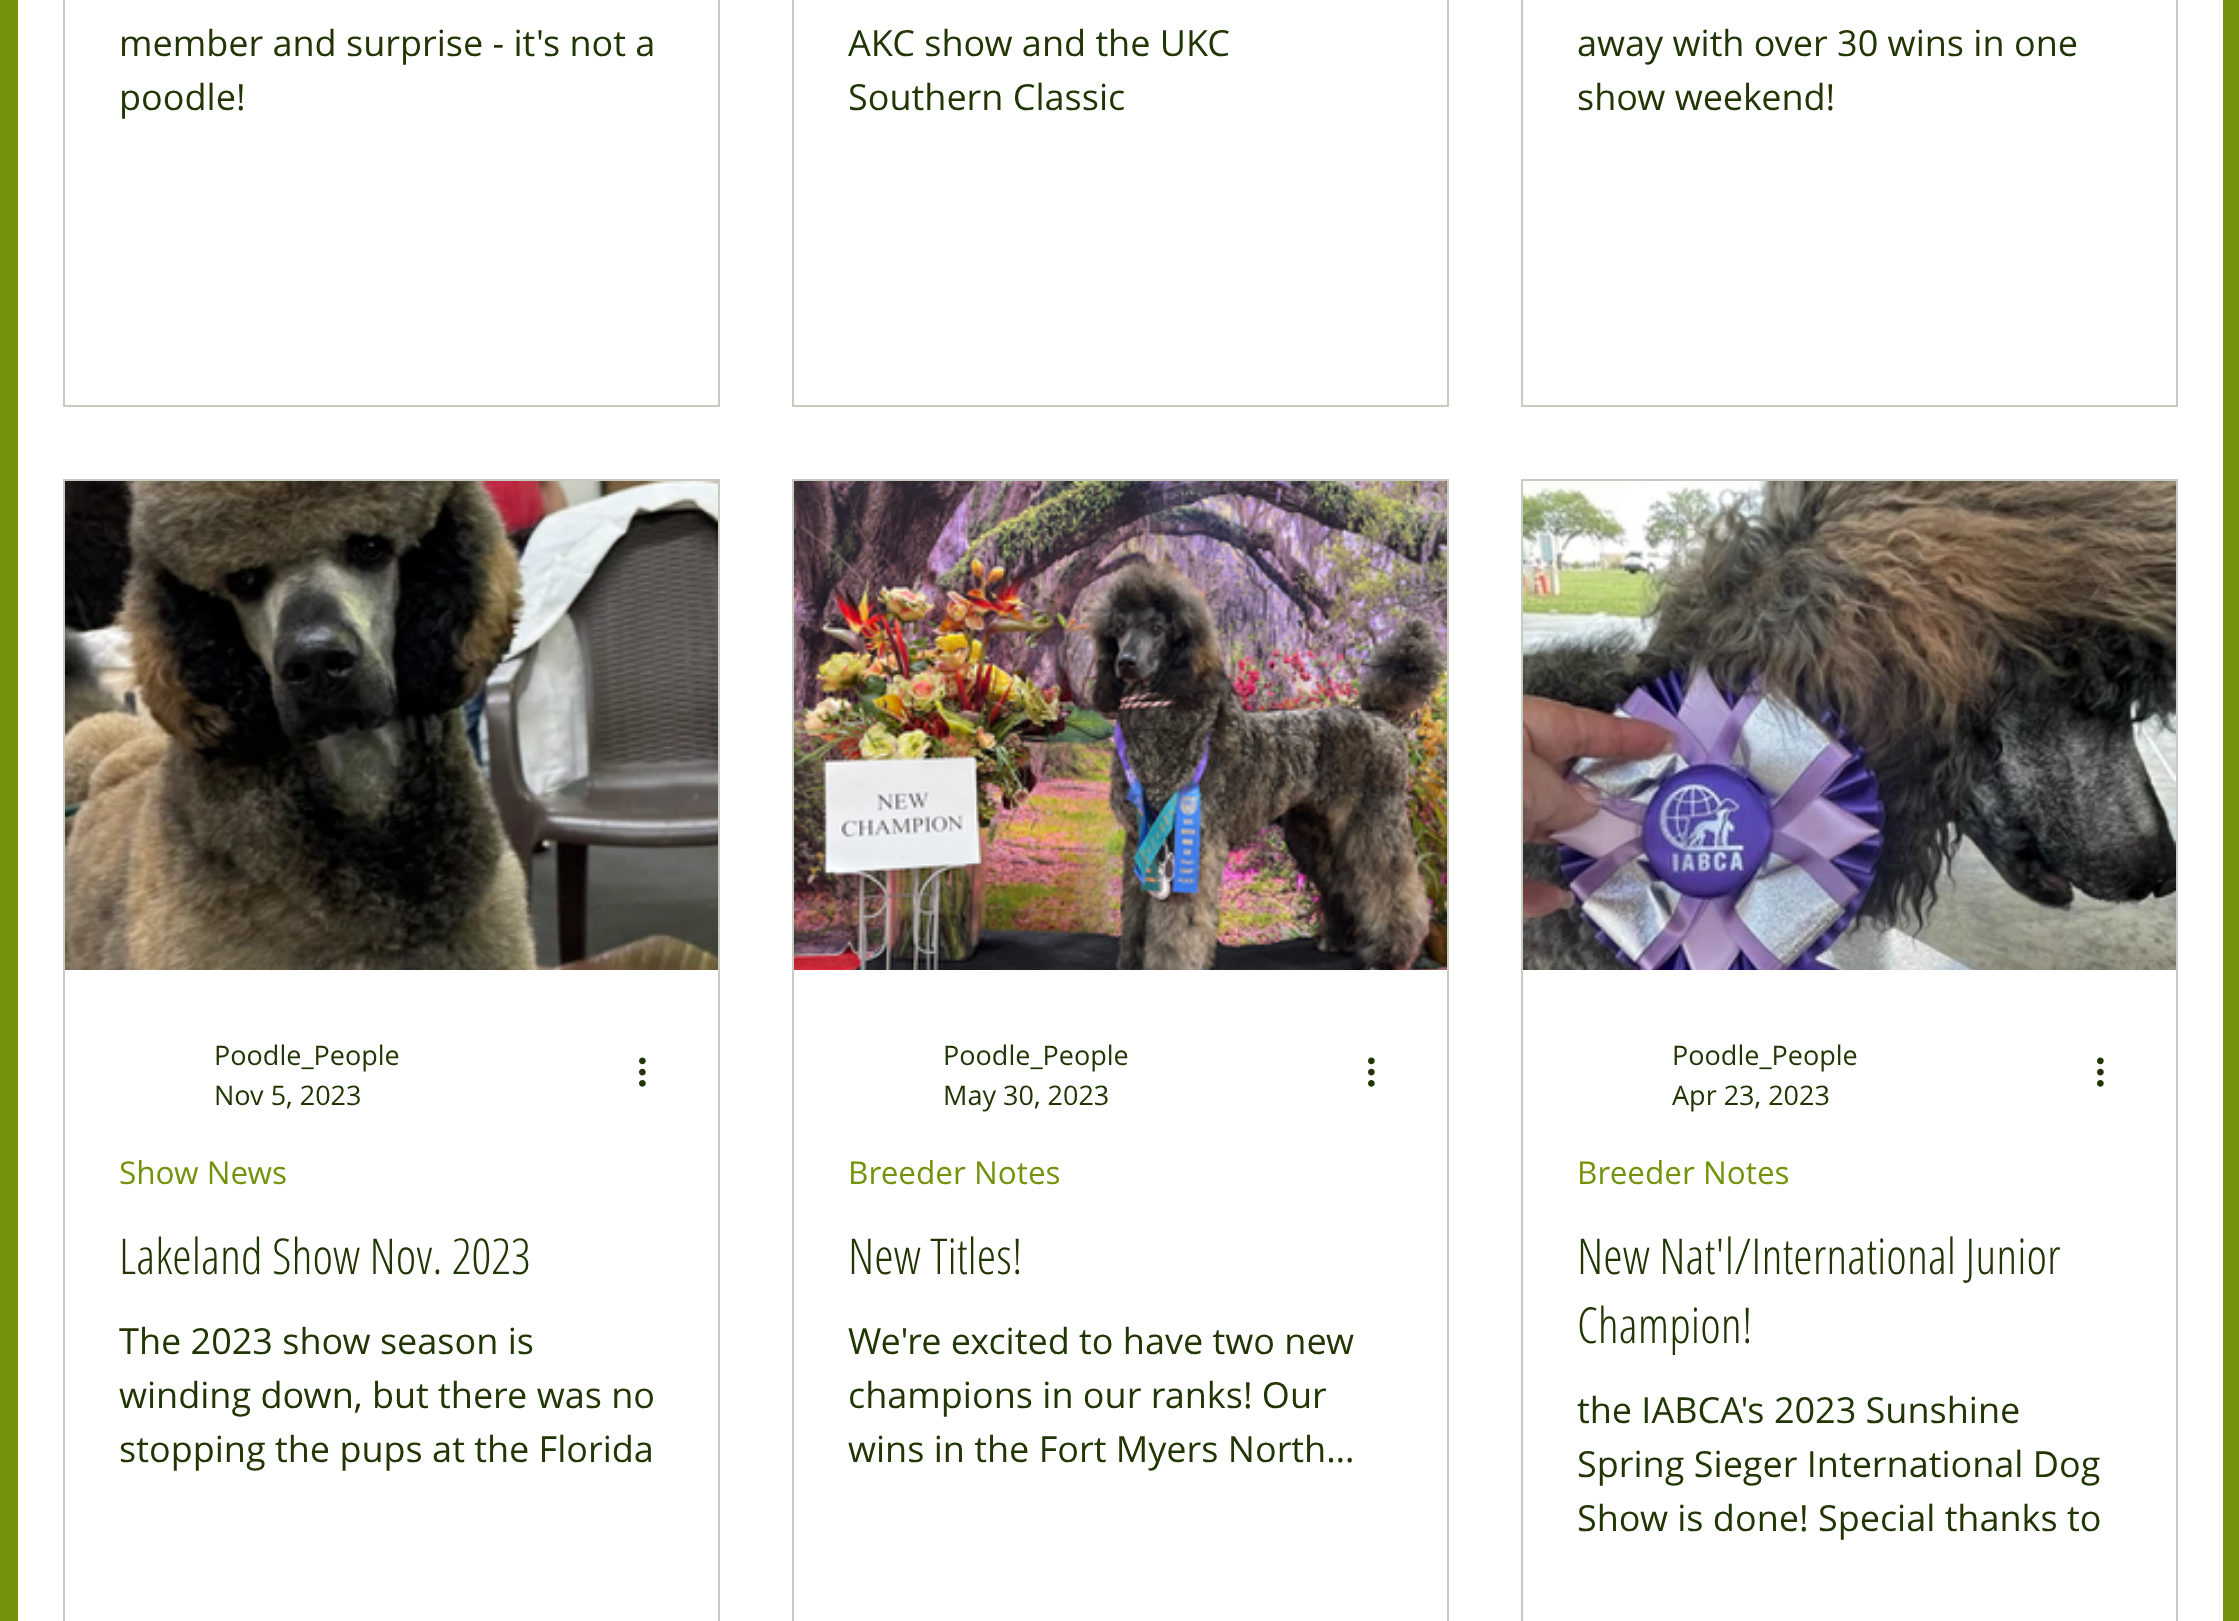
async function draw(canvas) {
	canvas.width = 2239;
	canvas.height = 1621;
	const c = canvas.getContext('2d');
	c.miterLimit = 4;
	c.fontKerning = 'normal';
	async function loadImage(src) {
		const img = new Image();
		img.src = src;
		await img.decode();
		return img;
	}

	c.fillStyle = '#73930c';
	c.fillRect(0, 0, 2239, 1621);
	c.fillStyle = '#fff';
	c.fillRect(18, 0, 2205, 1621);
	c.strokeStyle = '#c7ccc0';
	c.lineWidth = 2;
	c.strokeRect(64, -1, 655, 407);
	c.font = '36px Open Sans';
	c.fillStyle = '#223605';
	c.fillText('member and surprise - it\'s not a', 119, 56);
	c.fillText('poodle!', 119, 110);
	c.strokeRect(793, -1, 655, 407);
	c.fillText('AKC show and the UKC', 848, 56);
	c.fillText('Southern Classic', 848, 110);
	c.strokeRect(1522, -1, 655, 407);
	c.fillText('away with over 30 wins in one', 1577, 56);
	c.fillText('show weekend!', 1577, 110);
	c.strokeRect(64, 480, 655, 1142);
	c.drawImage(await loadImage('img1.png'), 65, 481, 653, 489);
	c.font = '27px Open Sans';
	c.fillText('Poodle_People', 214, 1065);
	c.fillText('Nov 5, 2023', 214, 1105);
	c.drawImage(await loadImage('img2.png'), 639, 1057, 7, 30);
	c.font = '31.5px Open Sans';
	c.fillStyle = '#73930c';
	c.fillText('Show News', 119, 1184);
	c.font = '300 49.5px Open Sans Condensed';
	c.fillStyle = '#223605';
	c.fillText('Lakeland Show Nov. 2023', 119, 1274);
	c.font = '36px Open Sans';
	for (const [text, x, y] of [
		['The 2023 show season is', 119, 1354],
		['winding down, but there was no', 119, 1408],
		['stopping the pups at the Florida', 119, 1462],
	]) {
		c.fillText(text, x, y);
	}
	c.strokeRect(793, 480, 655, 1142);
	c.drawImage(await loadImage('img3.png'), 794, 481, 653, 489);
	c.font = '27px Open Sans';
	c.fillText('Poodle_People', 943, 1065);
	c.fillText('May 30, 2023', 943, 1105);
	c.drawImage(await loadImage('img2.png'), 1368, 1057, 7, 30);
	c.font = '31.5px Open Sans';
	c.fillStyle = '#73930c';
	c.fillText('Breeder Notes', 848, 1184);
	c.font = '300 49.5px Open Sans Condensed';
	c.fillStyle = '#223605';
	c.fillText('New Titles!', 848, 1274);
	c.font = '36px Open Sans';
	for (const [text, x, y] of [
		['We\'re excited to have two new', 848, 1354],
		['champions in our ranks! Our', 848, 1408],
		['wins in the Fort Myers North…', 848, 1462],
	]) {
		c.fillText(text, x, y);
	}
	c.strokeRect(1522, 480, 655, 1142);
	c.drawImage(await loadImage('img4.png'), 1523, 481, 653, 489);
	c.font = '27px Open Sans';
	c.fillText('Poodle_People', 1672, 1065);
	c.fillText('Apr 23, 2023', 1672, 1105);
	c.drawImage(await loadImage('img2.png'), 2097, 1057, 7, 30);
	c.font = '31.5px Open Sans';
	c.fillStyle = '#73930c';
	c.fillText('Breeder Notes', 1577, 1184);
	c.font = '300 49.5px Open Sans Condensed';
	c.fillStyle = '#223605';
	c.fillText('New Nat\'l/International Junior', 1577, 1274);
	c.fillText('Champion!', 1577, 1343);
	c.font = '36px Open Sans';
	for (const [text, x, y] of [
		['the IABCA\'s 2023 Sunshine', 1577, 1423],
		['Spring Sieger International Dog', 1577, 1477],
		['Show is done! Special thanks to', 1577, 1531],
	]) {
		c.fillText(text, x, y);
	}
}

draw(document.querySelector('canvas'));
